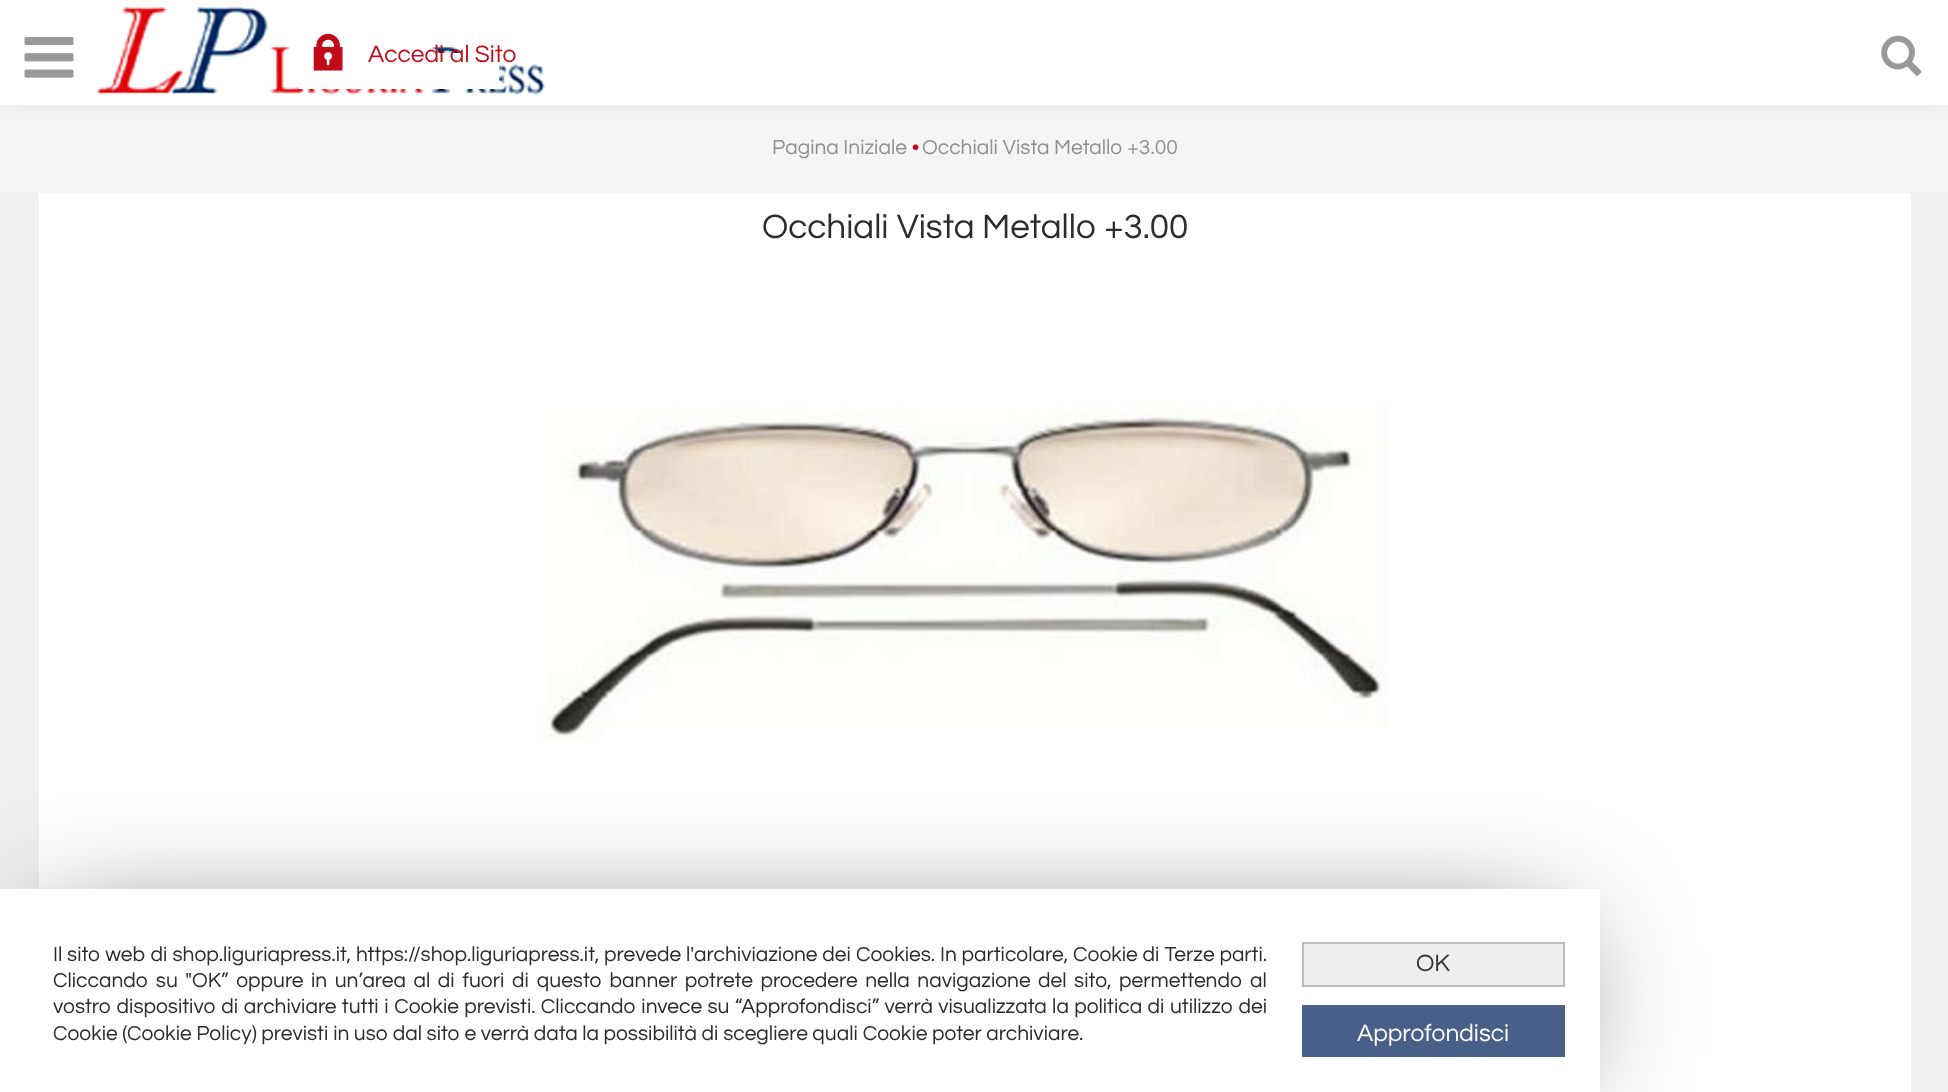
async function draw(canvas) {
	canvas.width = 1948;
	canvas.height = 1092;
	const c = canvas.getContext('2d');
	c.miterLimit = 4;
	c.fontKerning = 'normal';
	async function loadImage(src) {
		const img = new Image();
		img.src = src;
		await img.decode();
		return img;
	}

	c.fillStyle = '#f0f0f0';
	c.fillRect(0, 0, 1948, 1092);
	c.fillStyle = '#f5f5f5';
	c.fillRect(0, 105, 1948, 88);
	c.fillStyle = '#0000000f';
	c.filter = 'blur(12px)';
	c.beginPath();
	c.rect(0, 0, 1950, 105);
	c.fill();
	c.filter = 'none';
	c.fillStyle = '#fff';
	c.fillRect(0, 0, 1948, 105);
	c.drawImage(await loadImage('img1.png'), 24, 36, 50, 42);
	c.drawImage(await loadImage('img2.png'), 97, 7, 449, 88);
	c.drawImage(await loadImage('img3.png'), 1881, 35, 41, 41);
	c.fillRect(298, 53, 201, 36);
	c.drawImage(await loadImage('img4.png'), 313, 33, 30, 38);
	c.font = '24.5px Questrial';
	c.fillStyle = '#c10b18';
	c.fillText('Accedi al Sito', 368, 62);
	c.font = '21px Questrial';
	c.fillStyle = '#909090';
	c.fillText('Pagina Iniziale', 772, 154);
	c.letterSpacing = '-3px';
	c.fillStyle = '#c10b18';
	c.fillText('•', 912, 154);
	c.letterSpacing = '0px';
	c.fillStyle = '#909090';
	c.fillText('Occhiali Vista Metallo +3.00', 922, 154);
	c.fillStyle = '#fff';
	c.fillRect(39, 193, 1872, 899);
	c.font = '35px Questrial';
	c.fillStyle = '#2c2c2c';
	c.fillText('Occhiali Vista Metallo +3.00', 762, 238);
	c.fillStyle = '#e5e5e5';
	c.fillRect(926, 980, 96, 18);
	c.drawImage(await loadImage('img5.png'), 926, 980, 96, 18);
	c.drawImage(await loadImage('img6.png'), 538, 403, 851, 337);
	c.save();
	c.beginPath();
	c.moveTo(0, 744);
	c.lineTo(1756, 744);
	c.lineTo(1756, 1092);
	c.lineTo(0, 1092);
	c.closePath();
	c.moveTo(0, 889);
	c.lineTo(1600, 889);
	c.lineTo(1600, 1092);
	c.lineTo(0, 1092);
	c.closePath();
	c.clip('evenodd');
	c.fillStyle = '#000000bf';
	c.filter = 'blur(65.5px)';
	c.beginPath();
	c.rect(42, 942, 1516, 119);
	c.fill();
	c.filter = 'none';
	c.restore();
	c.fillStyle = '#fffffff2';
	c.fillRect(0, 889, 1600, 203);
	c.wordSpacing = '0.3px';
	c.font = '21px Questrial';
	c.fillStyle = '#2c2c2c';
	c.fillText('Il sito web di shop.liguriapress.it, https://shop.liguriapress.it, prevede l\'archiviazione dei Cookies. In particolare, Cookie di Terze parti.', 53, 961);
	c.wordSpacing = '3px';
	c.fillText('Cliccando su "OK” oppure in un’area al di fuori di questo banner potrete procedere nella navigazione del sito, permettendo al', 53, 987);
	c.wordSpacing = '0.8px';
	c.fillText('vostro dispositivo di archiviare tutti i Cookie previsti. Cliccando invece su “Approfondisci” verrà visualizzata la politica di utilizzo dei', 53, 1013);
	c.wordSpacing = '0px';
	c.fillText('Cookie (Cookie Policy) previsti in uso dal sito e verrà data la possibilità di scegliere quali Cookie poter archiviare.', 53, 1040);
	c.fillStyle = '#eee';
	c.beginPath();
	c.rect(1303, 943, 261, 43);
	c.fill();
	c.strokeStyle = '#bbb';
	c.lineWidth = 2;
	c.stroke();
	c.font = '24.5px Questrial';
	c.fillStyle = '#333';
	c.fillText('OK', 1416, 971);
	c.fillStyle = '#486088';
	c.fillRect(1302, 1005, 263, 52);
	c.fillStyle = '#fff';
	c.fillText('Approfondisci', 1357, 1041);
}

draw(document.querySelector('canvas'));
